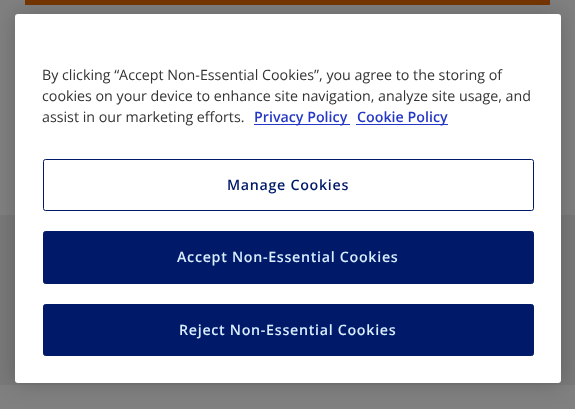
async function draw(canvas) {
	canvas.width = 575;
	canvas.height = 409;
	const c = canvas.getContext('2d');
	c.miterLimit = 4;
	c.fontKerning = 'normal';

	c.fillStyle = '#808080';
	c.fillRect(0, 0, 575, 409);
	c.fillStyle = '#763602';
	c.fillRect(25, 0, 525, 5);
	c.fillStyle = '#797979';
	c.fillRect(0, 215, 575, 170);
	c.fillStyle = '#00000033';
	c.filter = 'blur(11px)';
	c.beginPath();
	c.roundRect(15, 14, 546, 369, 3);
	c.fill();
	c.filter = 'none';
	c.fillStyle = '#fff';
	c.beginPath();
	c.roundRect(15, 14, 546, 369, 3);
	c.fill();
	c.font = '14.25px Open Sans';
	c.fillStyle = '#333';
	for (const [text, x, y] of [
		['By clicking “Accept Non-Essential Cookies”, you agree to the storing of', 42, 80],
		['cookies on your device to enhance site navigation, analyze site usage, and', 42, 101],
		['assist in our marketing efforts.', 42, 122],
	]) {
		c.fillText(text, x, y);
	}
	c.fillStyle = '#2537c6';
	c.fillRect(254, 124, 96, 1);
	c.font = '600 14.25px Open Sans';
	c.fillText('Privacy Policy', 254, 122);
	c.fillRect(356, 124, 92, 1);
	c.fillText('Cookie Policy', 357, 122);
	c.beginPath();
	c.roundRect(43.5, 159.5, 490, 51, 2);
	c.strokeStyle = '#001a69';
	c.stroke();
	c.letterSpacing = '0.7px';
	c.fillStyle = '#001a69';
	c.fillText('Manage Cookies', 227, 190);
	c.beginPath();
	c.roundRect(43.5, 231.5, 490, 52, 2);
	c.fill();
	c.stroke();
	c.fillStyle = '#d9eeff';
	c.fillText('Accept Non-Essential Cookies', 177, 262);
	c.fillStyle = '#001a69';
	c.beginPath();
	c.roundRect(43.5, 304.5, 490, 51, 2);
	c.fill();
	c.stroke();
	c.fillStyle = '#d9eeff';
	c.fillText('Reject Non-Essential Cookies', 179, 335);
}

draw(document.querySelector('canvas'));
